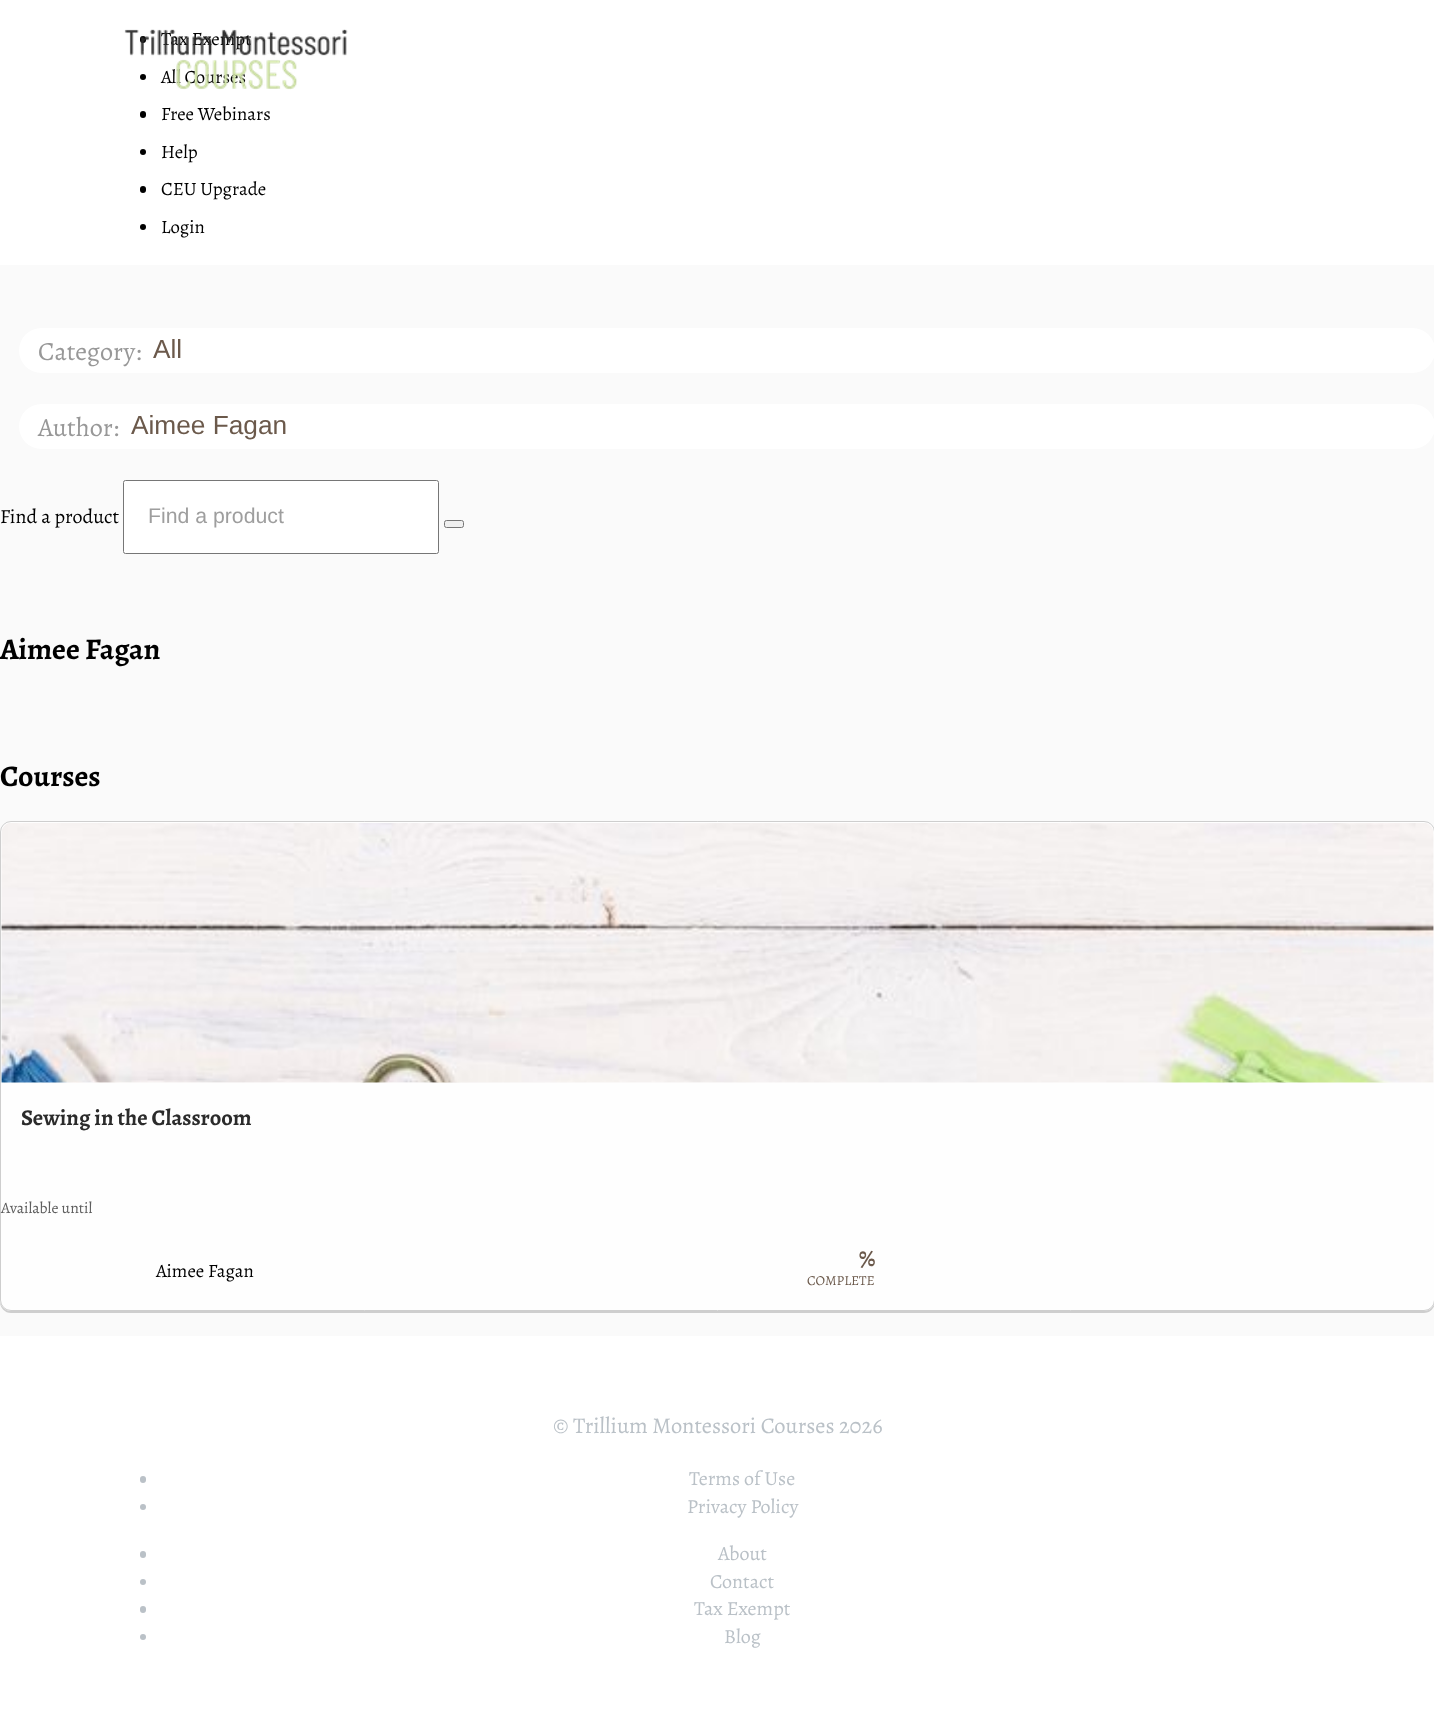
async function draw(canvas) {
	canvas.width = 1434;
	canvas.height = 1722;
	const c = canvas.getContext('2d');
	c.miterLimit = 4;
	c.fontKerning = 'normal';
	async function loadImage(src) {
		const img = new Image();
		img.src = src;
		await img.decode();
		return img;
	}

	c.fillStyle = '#fff';
	c.fillRect(0, 0, 1434, 1722);
	c.fillStyle = '#000';
	c.beginPath();
	c.roundRect(140, 36, 6, 7, 3);
	c.fill();
	c.font = '18.75px Alegreya';
	c.fillText('Tax Exempt', 161, 45);
	c.beginPath();
	c.arc(143, 77, 3, 0, 2 * Math.PI);
	c.fill();
	c.fillText('All Courses', 161, 83);
	c.drawImage(await loadImage('img1.png'), 124, 29, 224, 61);
	c.beginPath();
	c.roundRect(140, 111, 6, 7, 3);
	c.fill();
	c.fillText('Free Webinars', 161, 120);
	c.beginPath();
	c.arc(143, 152, 3, 0, 2 * Math.PI);
	c.fill();
	c.fillText('Help', 161, 158);
	c.beginPath();
	c.roundRect(140, 186, 6, 7, 3);
	c.fill();
	c.fillText('CEU Upgrade', 161, 195);
	c.beginPath();
	c.arc(143, 227, 3, 0, 2 * Math.PI);
	c.fill();
	c.fillText('Login', 161, 233);
	c.fillStyle = '#fafafa';
	c.fillRect(0, 265, 1434, 1071);
	c.fillStyle = '#fff';
	c.beginPath();
	c.roundRect(19, 328, 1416, 45, 22.5);
	c.fill();
	c.font = '26.25px Alegreya';
	c.fillStyle = '#989898';
	c.fillText('Category:', 38, 360);
	c.font = '26.25px Liberation Sans';
	c.fillStyle = '#6b594b';
	c.fillText('All', 153, 358);
	c.fillStyle = '#fff';
	c.beginPath();
	c.roundRect(19, 404, 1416, 45, 22.5);
	c.fill();
	c.font = '26.25px Alegreya';
	c.fillStyle = '#989898';
	c.fillText('Author:', 38, 436);
	c.font = '26.25px Liberation Sans';
	c.fillStyle = '#6b594b';
	c.fillText('Aimee Fagan', 131, 434);
	c.font = '20px Alegreya';
	c.fillStyle = '#000';
	c.fillText('Find a product', 0, 523);
	c.fillStyle = '#fff';
	c.beginPath();
	c.roundRect(123.5, 480.5, 315, 73, 2);
	c.fill();
	c.strokeStyle = '#767676';
	c.stroke();
	c.font = '21.25px Liberation Sans';
	c.fillStyle = '#9e9e9e';
	c.fillText('Find a product', 148, 523);
	c.fillStyle = '#efefef';
	c.beginPath();
	c.roundRect(444.5, 520.5, 19, 7, 2);
	c.fill();
	c.stroke();
	c.font = 'bold 30px Alegreya';
	c.fillStyle = '#000';
	c.fillText('Aimee Fagan', 0, 659);
	c.fillText('Courses', 0, 786);
	c.fillStyle = '#cecece';
	c.beginPath();
	c.moveTo(0, 1300);
	c.lineTo(0, 1302);
	c.bezierCurveTo(0, 1308, 5, 1313, 11, 1313);
	c.lineTo(1424, 1313);
	c.bezierCurveTo(1430, 1313, 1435, 1308, 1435, 1302);
	c.lineTo(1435, 1300);
	c.bezierCurveTo(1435, 1306, 1430, 1311, 1424, 1311);
	c.lineTo(11, 1311);
	c.bezierCurveTo(5, 1311, 0, 1306, 0, 1300);
	c.closePath();
	c.fill();
	c.fillStyle = '#ffffffb3';
	c.beginPath();
	c.roundRect(0.5, 821.5, 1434, 489, 10.5);
	c.fill();
	c.strokeStyle = '#cecece';
	c.stroke();
	c.drawImage(await loadImage('img2.png'), 1, 823, 1433, 260);
	c.font = 'bold 22.5px Alegreya';
	c.fillStyle = '#2b2b2b';
	c.fillText('Sewing in the Classroom', 21, 1125);
	c.font = '15.75px Alegreya';
	c.fillStyle = '#5e5e5e';
	c.fillText('Available until', 1, 1213);
	c.font = '18.75px Alegreya';
	c.fillStyle = '#000';
	c.fillText('Aimee Fagan', 156, 1277);
	c.font = 'bold 22.5px Alegreya';
	c.fillStyle = '#6b594b';
	c.fillText('%', 859, 1266);
	c.font = '13.75px Alegreya';
	c.fillText('COMPLETE', 807, 1285);
	c.font = '22.5px Alegreya';
	c.fillStyle = '#bac1c7';
	c.fillText('© Trillium Montessori Courses 2026', 553, 1433);
	c.beginPath();
	c.roundRect(140, 1476, 6, 7, 3);
	c.fill();
	c.font = '20px Alegreya';
	c.fillText('Terms of Use', 689, 1485);
	c.beginPath();
	c.arc(143, 1507, 3, 0, 2 * Math.PI);
	c.fill();
	c.fillText('Privacy Policy', 687, 1513);
	c.beginPath();
	c.roundRect(140, 1551, 6, 7, 3);
	c.fill();
	c.fillText('About', 718, 1560);
	c.beginPath();
	c.arc(143, 1582, 3, 0, 2 * Math.PI);
	c.fill();
	c.fillText('Contact', 710, 1588);
	c.beginPath();
	c.roundRect(140, 1606, 6, 7, 3);
	c.fill();
	c.fillText('Tax Exempt', 694, 1615);
	c.beginPath();
	c.arc(143, 1637, 3, 0, 2 * Math.PI);
	c.fill();
	c.fillText('Blog', 724, 1643);
}

draw(document.querySelector('canvas'));
